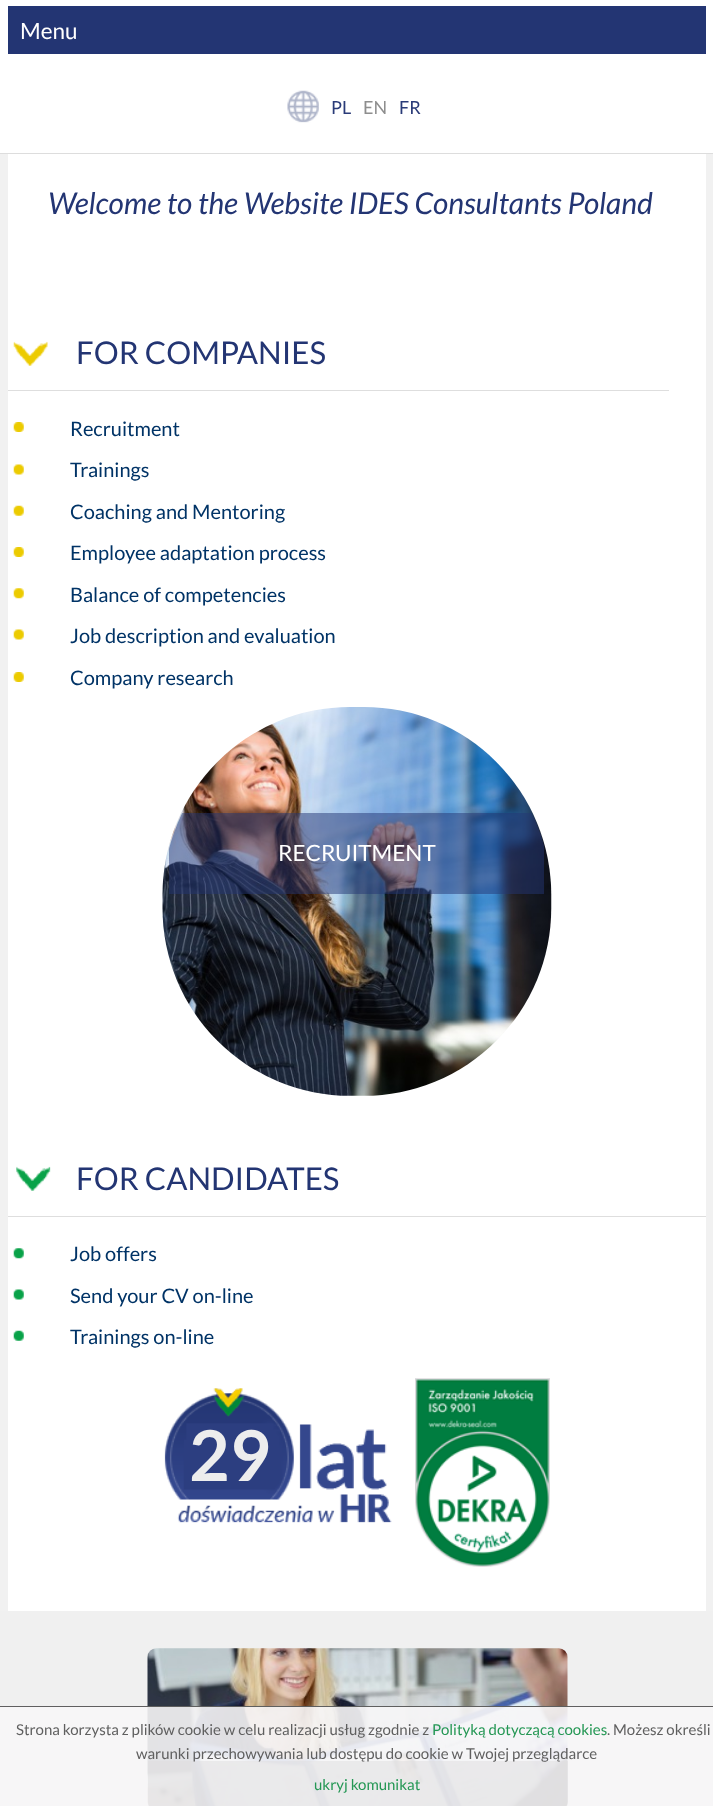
async function draw(canvas) {
	canvas.width = 713;
	canvas.height = 1806;
	const c = canvas.getContext('2d');
	c.miterLimit = 4;
	c.fontKerning = 'normal';
	async function loadImage(src) {
		const img = new Image();
		img.src = src;
		await img.decode();
		return img;
	}

	c.fillStyle = '#fff';
	c.fillRect(0, 0, 713, 1806);
	c.fillStyle = '#ddd';
	c.fillRect(0, 153, 713, 1);
	c.fillStyle = '#233573';
	c.fillRect(8, 6, 698, 48);
	c.font = '22.5px Lato';
	c.fillStyle = '#fff';
	c.fillText('Menu', 20, 39);
	c.drawImage(await loadImage('img1.png'), 287, 90, 32, 33);
	c.font = '18px Lato';
	c.fillStyle = '#2a3b78';
	c.fillText('PL', 331, 114);
	c.fillStyle = '#8e8e8e';
	c.fillText('EN', 363, 114);
	c.fillStyle = '#2a3b78';
	c.fillText('FR', 399, 114);
	c.fillStyle = '#f1f1f1';
	c.fillRect(0, 154, 713, 1457);
	c.fillStyle = '#fff';
	c.fillRect(8, 154, 698, 1457);
	c.font = 'italic 30px Lato';
	c.fillStyle = '#233573';
	c.fillText('Welcome to the Website IDES Consultants Poland', 48, 214);
	c.drawImage(await loadImage('img2.png'), 13, 341, 35, 25);
	c.fillStyle = '#dedede';
	c.fillRect(8, 390, 661, 1);
	c.font = '31.25px Lato';
	c.fillStyle = '#233573';
	c.fillText('FOR COMPANIES', 76, 364);
	c.drawImage(await loadImage('img3.png'), 13, 422, 11, 10);
	c.font = '20px Lato';
	c.fillStyle = '#036';
	c.fillText('Recruitment', 70, 436);
	c.drawImage(await loadImage('img4.png'), 13, 464, 11, 11);
	c.fillText('Trainings', 70, 477);
	c.drawImage(await loadImage('img5.png'), 13, 505, 11, 11);
	c.fillText('Coaching and Mentoring', 70, 519);
	c.drawImage(await loadImage('img3.png'), 13, 547, 11, 10);
	c.fillText('Employee adaptation process', 70, 560);
	c.drawImage(await loadImage('img6.png'), 13, 588, 11, 11);
	c.fillText('Balance of competencies', 70, 602);
	c.drawImage(await loadImage('img4.png'), 13, 629, 11, 11);
	c.fillText('Job description and evaluation', 70, 643);
	c.drawImage(await loadImage('img3.png'), 13, 672, 11, 10);
	c.fillText('Company research', 70, 685);
	c.drawImage(await loadImage('img7.png'), 162, 707, 390, 389);
	c.save();
	c.beginPath();
	c.roundRect(163, 708, 388, 388, 188);
	c.clip();
	c.fillStyle = '#23357380';
	c.fillRect(169, 813, 375, 81);
	c.restore();
	c.font = '22.5px Lato';
	c.fillStyle = '#fff';
	c.fillText('RECRUITMENT', 278, 861);
	c.drawImage(await loadImage('img8.png'), 16, 1166, 35, 25);
	c.fillStyle = '#dedede';
	c.fillRect(8, 1216, 698, 1);
	c.font = '31.25px Lato';
	c.fillStyle = '#233573';
	c.fillText('FOR CANDIDATES', 76, 1190);
	c.drawImage(await loadImage('img9.png'), 13, 1248, 11, 11);
	c.font = '20px Lato';
	c.fillStyle = '#036';
	c.fillText('Job offers', 70, 1261);
	c.drawImage(await loadImage('img10.png'), 13, 1289, 11, 11);
	c.fillText('Send your CV on-line', 70, 1303);
	c.drawImage(await loadImage('img11.png'), 13, 1330, 11, 11);
	c.fillText('Trainings on-line', 70, 1344);
	c.drawImage(await loadImage('img12.png'), 164, 1388, 228, 135);
	c.font = 'bold 70px Lato';
	c.fillStyle = '#ededed';
	c.fillText('29', 189, 1481);
	c.drawImage(await loadImage('img13.png'), 415, 1378, 135, 189);
	c.fillStyle = '#f0f0f0';
	c.fillRect(0, 1611, 713, 195);
	c.drawImage(await loadImage('img14.png'), 147, 1648, 421, 158);
	c.fillStyle = '#00000080';
	c.beginPath();
	c.moveTo(148, 1761);
	c.lineTo(568, 1761);
	c.lineTo(568, 1802);
	c.bezierCurveTo(568, 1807, 564, 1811, 559, 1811);
	c.lineTo(157, 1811);
	c.bezierCurveTo(152, 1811, 148, 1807, 148, 1802);
	c.closePath();
	c.fill();
	c.fillStyle = '#f7f6f7e6';
	c.fillRect(0, 1706, 713, 100);
	c.fillStyle = '#4f4f4fe6';
	c.fillRect(0, 1706, 713, 1);
	c.font = '15px Lato';
	c.fillStyle = '#5f5f5f';
	c.fillText('Strona korzysta z plików cookie w celu realizacji usług zgodnie z', 16, 1735);
	c.fillStyle = '#249754';
	c.fillText('Polityką dotyczącą cookies', 432, 1735);
	c.fillStyle = '#5f5f5f';
	c.fillText('. Możesz określi', 607, 1735);
	c.fillText('warunki przechowywania lub dostępu do cookie w Twojej przeglądarce', 136, 1759);
	c.fillStyle = '#249754';
	c.fillText('ukryj komunikat', 314, 1790);
}

draw(document.querySelector('canvas'));
